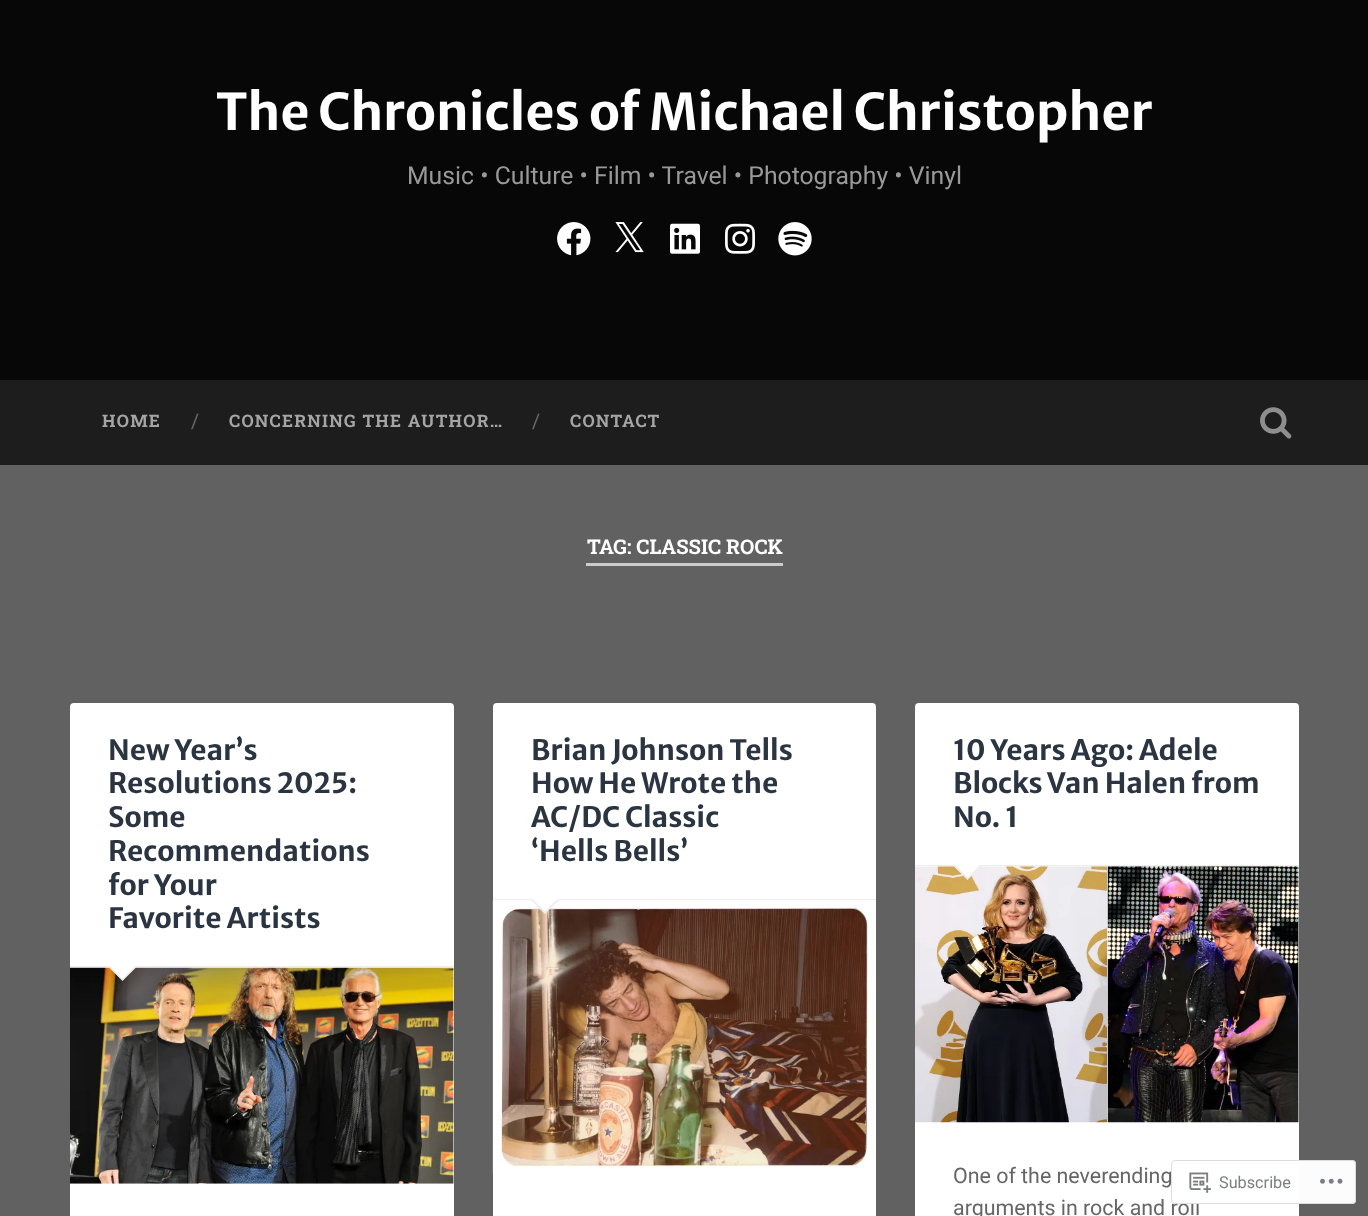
async function draw(canvas) {
	canvas.width = 1368;
	canvas.height = 1216;
	const c = canvas.getContext('2d');
	c.miterLimit = 4;
	c.fontKerning = 'normal';
	async function loadImage(src) {
		const img = new Image();
		img.src = src;
		await img.decode();
		return img;
	}

	c.fillStyle = '#616161';
	c.fillRect(0, 0, 1368, 1216);
	c.fillStyle = '#070707';
	c.fillRect(0, 0, 1368, 380);
	c.font = 'bold 50.6px Merriweather Sans';
	c.fillStyle = '#fff';
	c.fillText('The Chronicles of Michael Christopher', 216, 130);
	c.font = '24.75px Roboto';
	c.fillStyle = '#999';
	c.fillText('Music • Culture • Film • Travel • Photography • Vinyl', 407, 184);
	c.drawImage(await loadImage('img1.png'), 557, 222, 34, 34);
	c.drawImage(await loadImage('img2.png'), 615, 222, 29, 31);
	c.drawImage(await loadImage('img3.png'), 670, 223, 30, 31);
	c.drawImage(await loadImage('img4.png'), 725, 223, 30, 31);
	c.drawImage(await loadImage('img5.png'), 778, 222, 34, 34);
	c.fillStyle = '#1d1d1d';
	c.fillRect(0, 380, 1368, 85);
	c.letterSpacing = '1.25px';
	c.font = 'bold 17.25px Roboto Slab';
	c.fillStyle = '#a5a5a5';
	c.fillText('HOME', 102, 427);
	c.letterSpacing = '0px';
	c.font = '20px Roboto Slab';
	c.fillStyle = '#666';
	c.fillText('/', 191, 428);
	c.letterSpacing = '1.25px';
	c.font = 'bold 17.25px Roboto Slab';
	c.fillStyle = '#a5a5a5';
	c.fillText('CONCERNING THE AUTHOR…', 229, 427);
	c.letterSpacing = '0px';
	c.font = '20px Roboto Slab';
	c.fillStyle = '#666';
	c.fillText('/', 532, 428);
	c.letterSpacing = '1.25px';
	c.font = 'bold 17.25px Roboto Slab';
	c.fillStyle = '#a5a5a5';
	c.fillText('CONTACT', 570, 427);
	c.drawImage(await loadImage('img6.png'), 1260, 407, 32, 32);
	c.fillStyle = '#ccc';
	c.fillRect(586, 563, 197, 3);
	c.letterSpacing = '0px';
	c.font = 'bold 20.25px Roboto Slab';
	c.fillStyle = '#fff';
	c.fillText('TAG: CLASSIC ROCK', 587, 554);
	c.beginPath();
	c.roundRect(70, 703, 384, 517, 4);
	c.fill();
	c.fillStyle = '#eee';
	c.fillRect(70, 966, 384, 1);
	c.font = 'bold 28.1px Merriweather Sans';
	c.fillStyle = '#2b3542';
	for (const [text, x, y] of [
		['New Year’s', 108, 760],
		['Resolutions 2025:', 108, 793],
		['Some', 108, 827],
		['Recommendations', 108, 861],
		['for Your', 108, 895],
		['Favorite Artists', 108, 928],
	]) {
		c.fillText(text, x, y);
	}
	c.drawImage(await loadImage('img7.png'), 70, 967, 384, 217);
	c.fillStyle = '#eee';
	c.beginPath();
	c.moveTo(107.5, 966);
	c.lineTo(137.5, 966);
	c.lineTo(122.5, 981);
	c.closePath();
	c.fill();
	c.fillStyle = '#fff';
	c.beginPath();
	c.moveTo(109, 965);
	c.lineTo(136, 965);
	c.lineTo(122.5, 979);
	c.closePath();
	c.fill();
	c.beginPath();
	c.roundRect(493, 703, 383, 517, 4);
	c.fill();
	c.fillStyle = '#eee';
	c.fillRect(493, 899, 383, 1);
	c.fillStyle = '#2b3542';
	for (const [text, x, y] of [
		['Brian Johnson Tells', 531, 760],
		['How He Wrote the', 531, 793],
		['AC/DC Classic', 531, 827],
		['‘Hells Bells’', 531, 861],
	]) {
		c.fillText(text, x, y);
	}
	c.drawImage(await loadImage('img8.png'), 492, 900, 377, 274);
	c.fillStyle = '#eee';
	c.beginPath();
	c.moveTo(530, 899);
	c.lineTo(560, 899);
	c.lineTo(545, 914);
	c.closePath();
	c.fill();
	c.fillStyle = '#fff';
	c.beginPath();
	c.moveTo(531, 897.5);
	c.lineTo(559, 897.5);
	c.lineTo(545, 911);
	c.closePath();
	c.fill();
	c.beginPath();
	c.roundRect(915, 703, 384, 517, 4);
	c.fill();
	c.fillStyle = '#eee';
	c.fillRect(915, 865, 384, 1);
	c.fillStyle = '#2b3542';
	for (const [text, x, y] of [
		['10 Years Ago: Adele', 953, 760],
		['Blocks Van Halen from', 953, 793],
		['No. 1', 953, 827],
	]) {
		c.fillText(text, x, y);
	}
	c.drawImage(await loadImage('img9.png'), 915, 866, 384, 257);
	c.fillStyle = '#eee';
	c.beginPath();
	c.moveTo(952.5, 865);
	c.lineTo(982.5, 865);
	c.lineTo(967.5, 880);
	c.closePath();
	c.fill();
	c.fillStyle = '#fff';
	c.beginPath();
	c.moveTo(954, 864);
	c.lineTo(981, 864);
	c.lineTo(967.5, 877.5);
	c.closePath();
	c.fill();
	c.font = '21.4px Roboto';
	c.fillStyle = '#666';
	c.fillText('One of the neverending', 953, 1183);
	c.fillText('arguments in rock and roll', 953, 1215);
	c.fillStyle = '#fffffffa';
	c.beginPath();
	c.roundRect(1171, 1160, 185, 44, 4);
	c.fill();
	c.beginPath();
	c.roundRect(1171.5, 1160.5, 184, 43, 3.5);
	c.strokeStyle = '#dcdcdefa';
	c.stroke();
	c.drawImage(await loadImage('img10.png'), 1189, 1172, 22, 21);
	c.font = '16.25px Roboto';
	c.fillStyle = '#7b7f85';
	c.fillText('Subscribe', 1219, 1188);
	c.drawImage(await loadImage('img11.png'), 1320, 1178, 23, 6);
}

draw(document.querySelector('canvas'));
